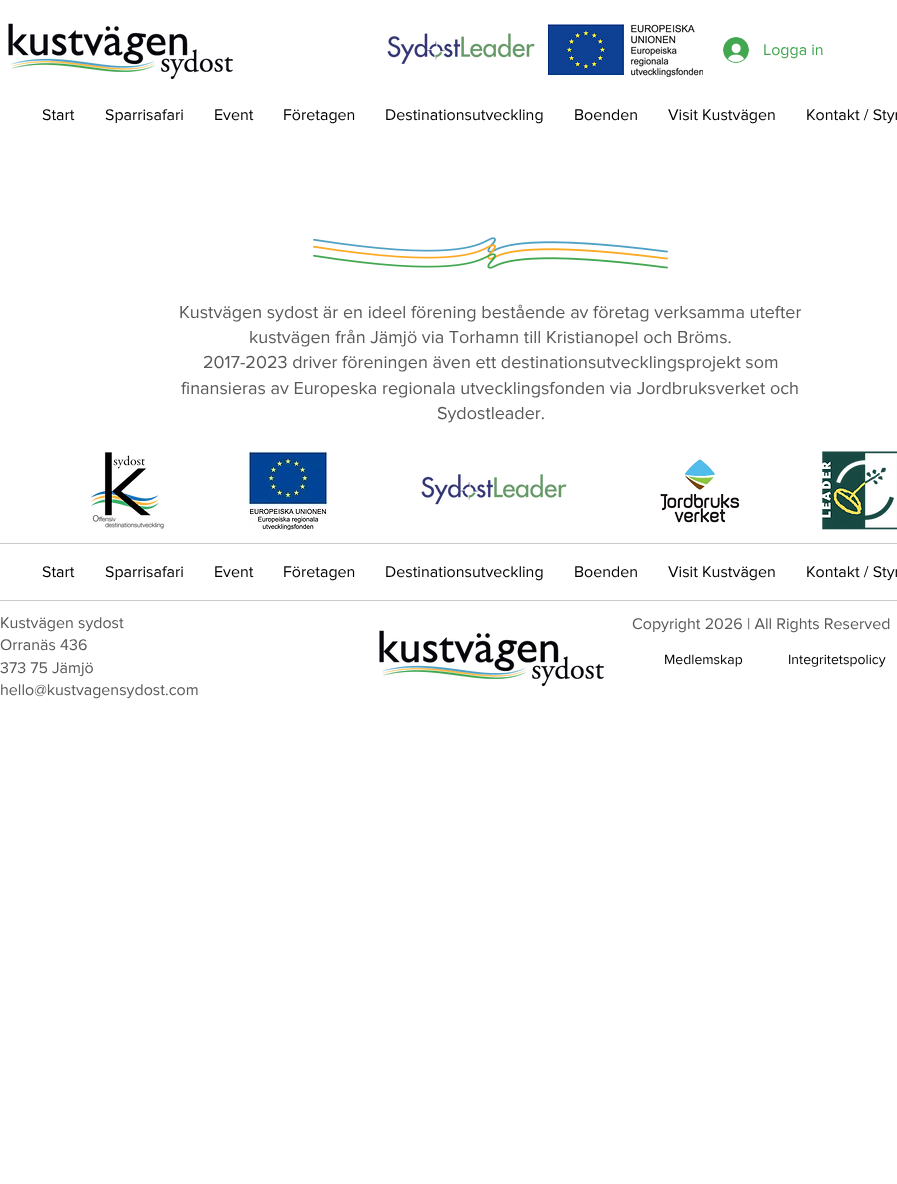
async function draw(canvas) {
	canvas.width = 897;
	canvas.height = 1184;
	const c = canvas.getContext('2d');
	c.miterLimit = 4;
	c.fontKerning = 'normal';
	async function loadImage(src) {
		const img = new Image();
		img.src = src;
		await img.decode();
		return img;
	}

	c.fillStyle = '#fff';
	c.fillRect(0, 0, 897, 1184);
	c.drawImage(await loadImage('img1.png'), 8, 23, 225, 57);
	c.drawImage(await loadImage('img2.png'), 387, 33, 148, 31);
	c.drawImage(await loadImage('img3.png'), 547, 24, 156, 53);
	c.drawImage(await loadImage('img4.png'), 723, 37, 26, 26);
	c.font = '16px "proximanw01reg"';
	c.fillStyle = '#42a750';
	c.fillText('Logga in', 763, 55);
	c.fillStyle = '#000';
	for (const [text, x, y] of [
		['Start', 42, 120],
		['Sparrisafari', 105, 120],
		['Event', 214, 120],
		['Företagen', 283, 120],
		['Destinationsutveckling', 385, 120],
		['Boenden', 574, 120],
		['Visit Kustvägen', 668, 120],
		['Kontakt / Styr', 806, 120],
	]) {
		c.fillText(text, x, y);
	}
	c.drawImage(await loadImage('img5.png'), 313, 237, 355, 16);
	c.drawImage(await loadImage('img6.png'), 313, 244, 355, 16);
	c.drawImage(await loadImage('img7.png'), 313, 253, 355, 16);
	c.font = '18px "proximanw01reg"';
	c.fillStyle = '#595959';
	for (const [text, x, y] of [
		['Kustvägen sydost är en ideel förening bestående av företag verksamma utefter', 179, 318],
		['kustvägen från Jämjö via Torhamn till Kristianopel och Bröms.', 249, 343],
		['2017-2023 driver föreningen även ett destinationsutvecklingsprojekt som', 203, 368],
		['finansieras av Europeska regionala utvecklingsfonden via Jordbruksverket och', 181, 394],
		['Sydostleader.', 437, 419],
	]) {
		c.fillText(text, x, y);
	}
	c.drawImage(await loadImage('img8.png'), 90, 452, 74, 77);
	c.drawImage(await loadImage('img9.png'), 248, 451, 80, 79);
	c.drawImage(await loadImage('img10.png'), 421, 474, 146, 31);
	c.drawImage(await loadImage('img11.png'), 660, 459, 80, 64);
	c.drawImage(await loadImage('img12.png'), 822, 451, 75, 79);
	c.fillStyle = '#cacaca';
	c.fillRect(0, 543, 897, 1);
	c.fillRect(0, 600, 897, 1);
	c.font = '16px "proximanw01reg"';
	c.fillStyle = '#000';
	for (const [text, x, y] of [
		['Start', 42, 577],
		['Sparrisafari', 105, 577],
		['Event', 214, 577],
		['Företagen', 283, 577],
		['Destinationsutveckling', 385, 577],
		['Boenden', 574, 577],
		['Visit Kustvägen', 668, 577],
		['Kontakt / Styr', 806, 577],
	]) {
		c.fillText(text, x, y);
	}
	c.fillStyle = '#595959';
	for (const [text, x, y] of [
		['Kustvägen sydost', 0, 628],
		['Orranäs 436', 0, 650],
		['373 75 Jämjö', 0, 673],
		['hello@kustvagensydost.com', 0, 695],
		['Copyright 2026 | All Rights Reserved', 632, 629],
	]) {
		c.fillText(text, x, y);
	}
	c.drawImage(await loadImage('img1.png'), 379, 630, 225, 57);
	c.font = '14px "proximanw01reg"';
	c.fillStyle = '#000';
	c.fillText('Medlemskap', 664, 664);
	c.fillText('Integritetspolicy', 788, 664);
}

draw(document.querySelector('canvas'));
